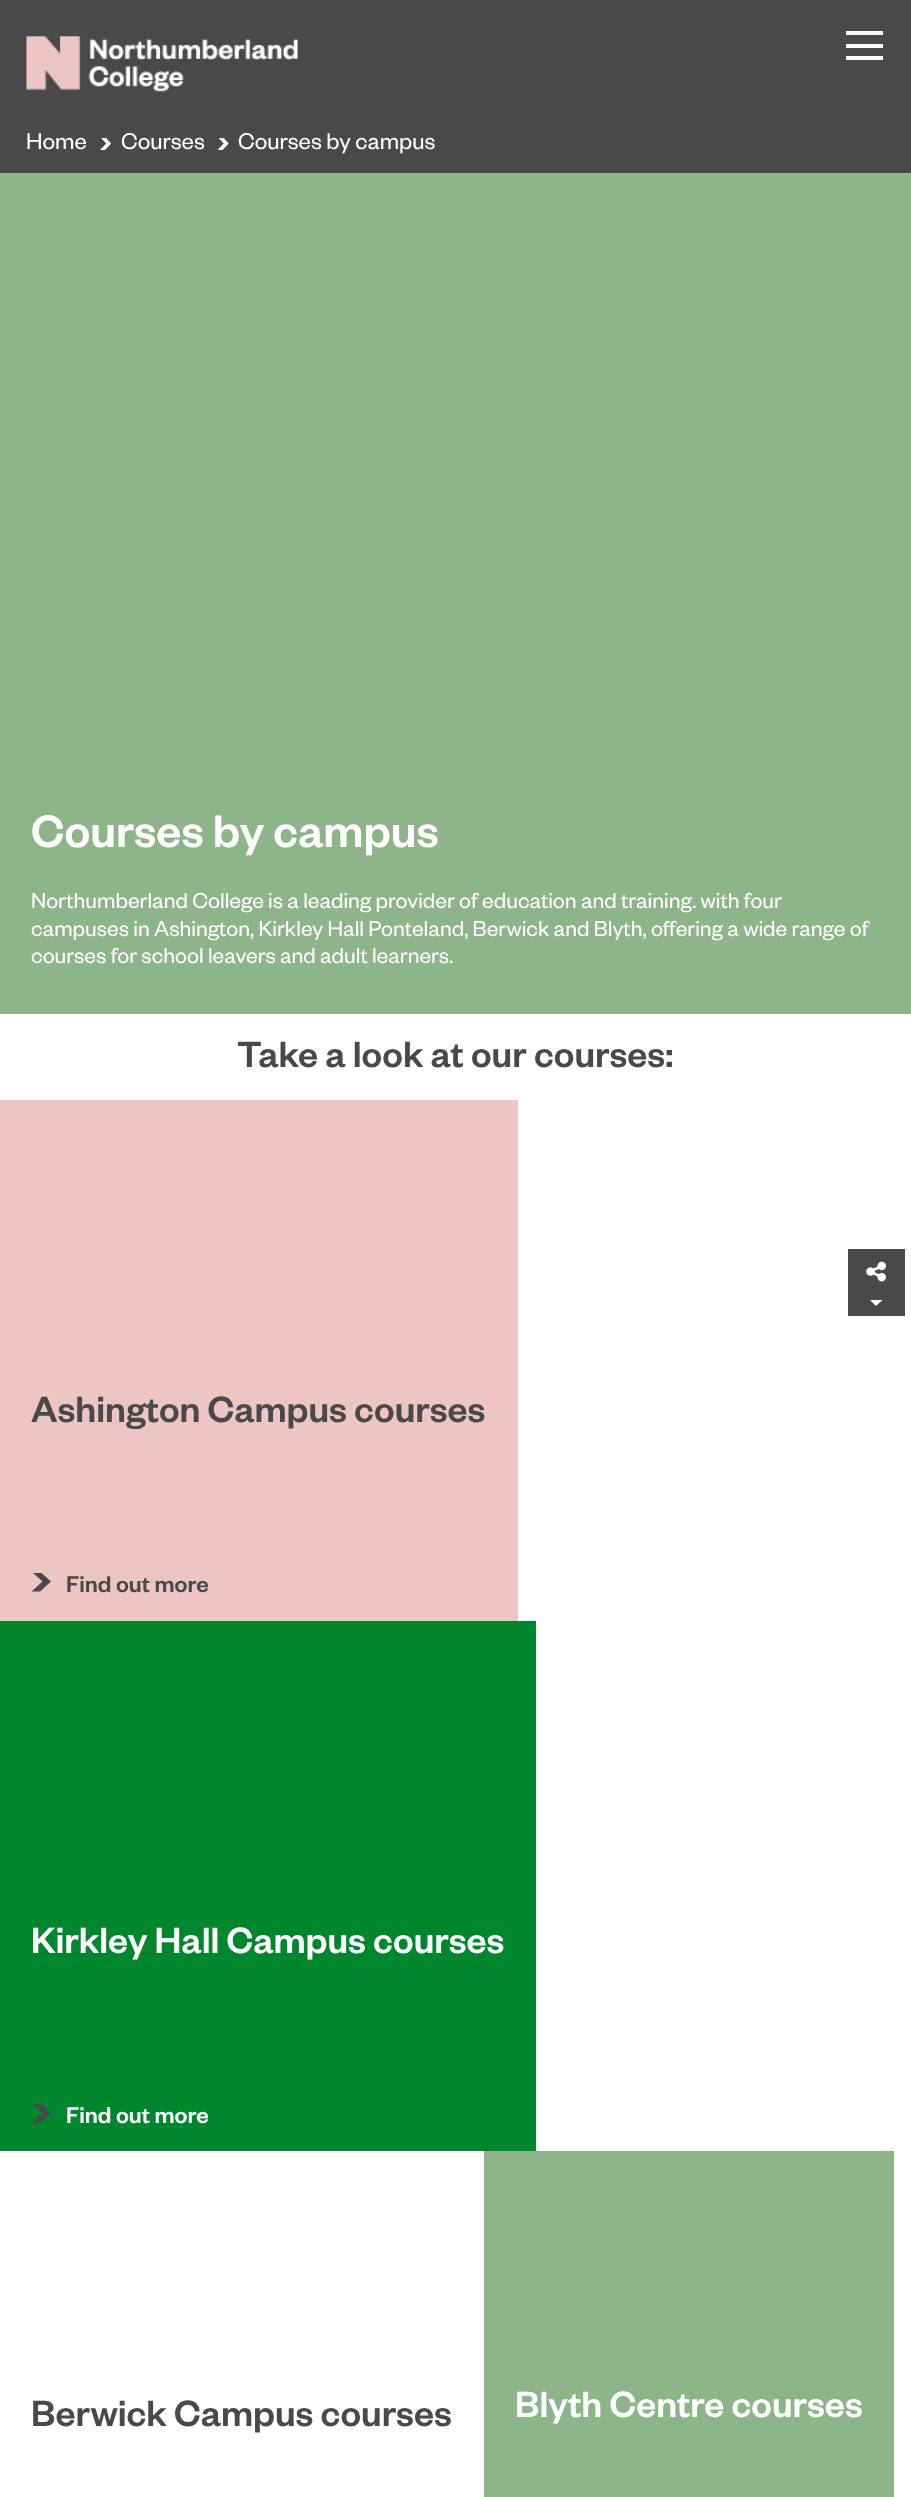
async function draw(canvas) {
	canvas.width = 911;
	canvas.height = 2497;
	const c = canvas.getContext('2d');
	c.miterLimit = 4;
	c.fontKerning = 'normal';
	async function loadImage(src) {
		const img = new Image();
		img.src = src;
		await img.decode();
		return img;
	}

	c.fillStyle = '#fff';
	c.fillRect(0, 0, 911, 2497);
	c.fillStyle = '#4a4949';
	c.fillRect(0, 0, 911, 173);
	c.drawImage(await loadImage('img1.png'), 26, 36, 272, 56);
	for (const [x, y, w, h, color] of [
		[846, 31, 37, 4, '#fff'],
		[846, 44, 37, 4, '#fff'],
		[846, 56, 37, 4, '#fff'],
	]) {
		c.fillStyle = color;
		c.fillRect(x, y, w, h);
	}
	c.font = '25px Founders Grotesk';
	c.fillText('Home', 26, 149);
	c.drawImage(await loadImage('img2.png'), 100, 138, 11, 12);
	c.fillText('Courses', 121, 149);
	c.drawImage(await loadImage('img3.png'), 218, 138, 11, 12);
	c.fillText('Courses by campus', 238, 149);
	c.fillStyle = '#8eb48a';
	c.fillRect(0, 173, 911, 841);
	c.font = '500 50px Founders Grotesk';
	c.fillStyle = '#fff';
	c.fillText('Courses by campus', 31, 847);
	c.font = '23.75px Founders Grotesk';
	for (const [text, x, y] of [
		['Northumberland College is a leading provider of education and training. with four', 31, 908],
		['campuses in Ashington, Kirkley Hall Ponteland, Berwick and Blyth, offering a wide range of', 31, 936],
		['courses for school leavers and adult learners.', 31, 963],
	]) {
		c.fillText(text, x, y);
	}
	c.font = '500 40px Founders Grotesk';
	c.fillStyle = '#4a4949';
	c.fillText('Take a look at our courses:', 237, 1067);
	c.fillStyle = '#edc5c4';
	c.fillRect(0, 1100, 518, 521);
	c.fillStyle = '#4a4949';
	c.fillText('Ashington Campus courses', 31, 1422);
	c.save();
	c.beginPath();
	c.rect(31, 1573, 20, 20);
	c.clip();
	c.beginPath();
	c.moveTo(32.5, 1572.5);
	c.lineTo(42.5, 1581.5);
	c.lineTo(31.5, 1591.5);
	c.lineTo(40, 1591.5);
	c.lineTo(51, 1581.5);
	c.lineTo(41, 1572.5);
	c.closePath();
	c.fill();
	c.restore();
	c.font = '500 25px Founders Grotesk';
	c.fillText('Find out more', 66, 1592);
	c.fillStyle = '#00862d';
	c.fillRect(0, 1621, 536, 530);
	c.font = '500 40px Founders Grotesk';
	c.fillStyle = '#fff';
	c.fillText('Kirkley Hall Campus courses', 31, 1953);
	c.save();
	c.beginPath();
	c.rect(31, 2104, 20, 19);
	c.clip();
	c.fillStyle = '#4a4949';
	c.beginPath();
	c.moveTo(32.5, 2103.5);
	c.lineTo(42.5, 2113);
	c.lineTo(31.5, 2123);
	c.lineTo(40, 2123);
	c.lineTo(51, 2113);
	c.lineTo(41, 2103.5);
	c.closePath();
	c.fill();
	c.restore();
	c.font = '500 25px Founders Grotesk';
	c.fillText('Find out more', 66, 2123);
	c.font = '500 40px Founders Grotesk';
	c.fillStyle = '#4a4949';
	c.fillText('Berwick Campus courses', 31, 2426);
	c.fillStyle = '#8eb48a';
	c.fillRect(484, 2151, 410, 346);
	c.fillStyle = '#fff';
	c.fillText('Blyth Centre courses', 515, 2417);
	c.fillStyle = '#4a4949';
	c.fillRect(848, 1249, 57, 67);
	c.drawImage(await loadImage('img4.png'), 866, 1261, 20, 21);
	c.fillStyle = '#fff';
	c.beginPath();
	c.moveTo(870, 1300);
	c.lineTo(882.5, 1300);
	c.lineTo(876, 1306);
	c.closePath();
	c.fill();
}

draw(document.querySelector('canvas'));
